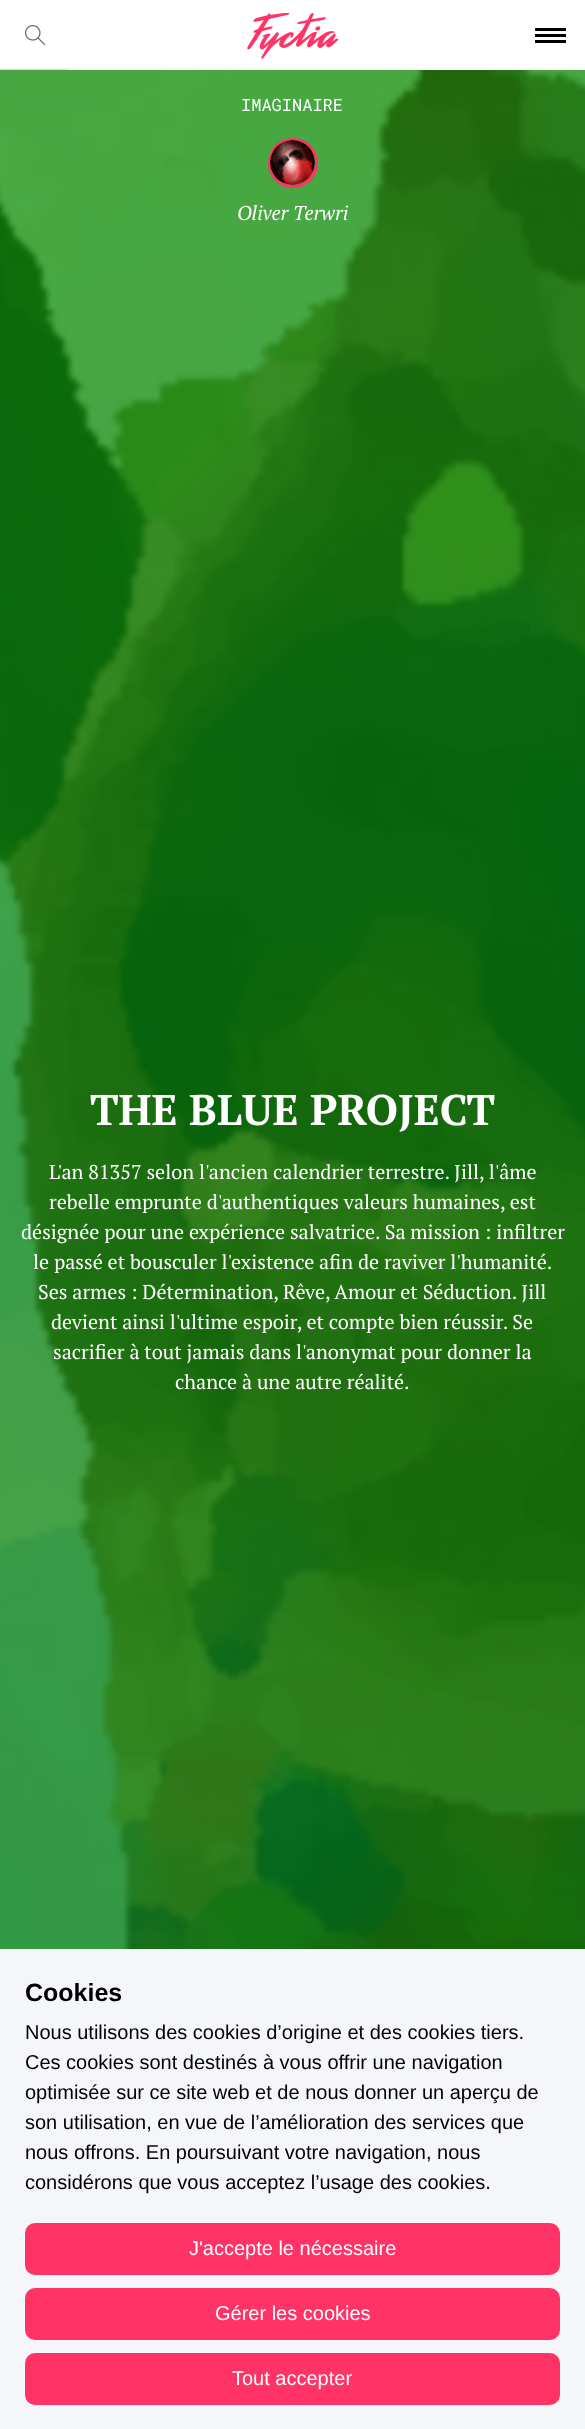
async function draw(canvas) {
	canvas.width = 585;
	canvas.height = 2429;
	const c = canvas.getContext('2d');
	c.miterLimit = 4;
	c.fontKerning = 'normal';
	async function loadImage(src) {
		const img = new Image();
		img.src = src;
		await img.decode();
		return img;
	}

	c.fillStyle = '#fff';
	c.fillRect(0, 0, 585, 2429);
	c.fillStyle = '#d9d9d9';
	c.fillRect(0, 69, 69, 1);
	c.drawImage(await loadImage('img1.png'), 25, 25, 20, 20);
	c.drawImage(await loadImage('img2.png'), 247, 13, 92, 46);
	for (const [x, y, w, h, color] of [
		[535, 34, 31, 3, '#000'],
		[535, 28, 31, 3, '#000'],
		[535, 40, 31, 3, '#000'],
		[0, 70, 585, 1879, '#008703'],
	]) {
		c.fillStyle = color;
		c.fillRect(x, y, w, h);
	}
	c.drawImage(await loadImage('img3.png'), 0, 70, 585, 1879);
	c.font = '17px Roboto Mono';
	c.fillStyle = '#fff';
	c.fillText('IMAGINAIRE', 241, 111);
	c.beginPath();
	c.arc(293, 163, 23.5, 0, 2 * Math.PI);
	c.strokeStyle = '#f36';
	c.lineWidth = 3;
	c.stroke();
	c.drawImage(await loadImage('img4.png'), 270, 140, 45, 45);
	c.font = 'italic 20px PT Serif';
	c.fillText('Oliver Terwri', 237, 220);
	c.font = 'bold 42.9px PT Serif';
	c.fillText('THE BLUE PROJECT', 90, 1125);
	c.font = '20px PT Serif';
	for (const [text, x, y] of [
		['L\'an 81357 selon l\'ancien calendrier terrestre. Jill, l\'âme', 49, 1179],
		['rebelle emprunte d\'authentiques valeurs humaines, est', 49, 1209],
		['désignée pour une expérience salvatrice. Sa mission : infiltrer', 21, 1239],
		['le passé et bousculer l\'existence afin de raviver l\'humanité.', 33, 1269],
		['Ses armes : Détermination, Rêve, Amour et Séduction. Jill', 38, 1299],
		['devient ainsi l\'ultime espoir, et compte bien réussir. Se', 51, 1329],
		['sacrifier à tout jamais dans l\'anonymat pour donner la', 53, 1359],
		['chance à une autre réalité.', 175, 1389],
	]) {
		c.fillText(text, x, y);
	}
	c.fillStyle = '#f5f6fa';
	c.fillRect(0, 1949, 585, 480);
	c.font = 'bold 25px Liberation Sans';
	c.fillStyle = '#000';
	c.fillText('Cookies', 25, 2001);
	c.font = '20px Liberation Sans';
	for (const [text, x, y] of [
		['Nous utilisons des cookies d’origine et des cookies tiers.', 25, 2039],
		['Ces cookies sont destinés à vous offrir une navigation', 25, 2069],
		['optimisée sur ce site web et de nous donner un aperçu de', 25, 2099],
		['son utilisation, en vue de l’amélioration des services que', 25, 2129],
		['nous offrons. En poursuivant votre navigation, nous', 25, 2159],
		['considérons que vous acceptez l’usage des cookies.', 25, 2189],
	]) {
		c.fillText(text, x, y);
	}
	c.fillStyle = '#f36';
	c.beginPath();
	c.roundRect(25, 2223, 535, 52, 10);
	c.fill();
	c.fillStyle = '#fff';
	c.fillText('J\'accepte le nécessaire', 189, 2255);
	c.fillStyle = '#f36';
	c.beginPath();
	c.roundRect(25, 2288, 535, 52, 10);
	c.fill();
	c.fillStyle = '#fff';
	c.fillText('Gérer les cookies', 215, 2320);
	c.fillStyle = '#f36';
	c.beginPath();
	c.roundRect(25, 2353, 535, 52, 10);
	c.fill();
	c.fillStyle = '#fff';
	c.fillText('Tout accepter', 232, 2385);
}

draw(document.querySelector('canvas'));
